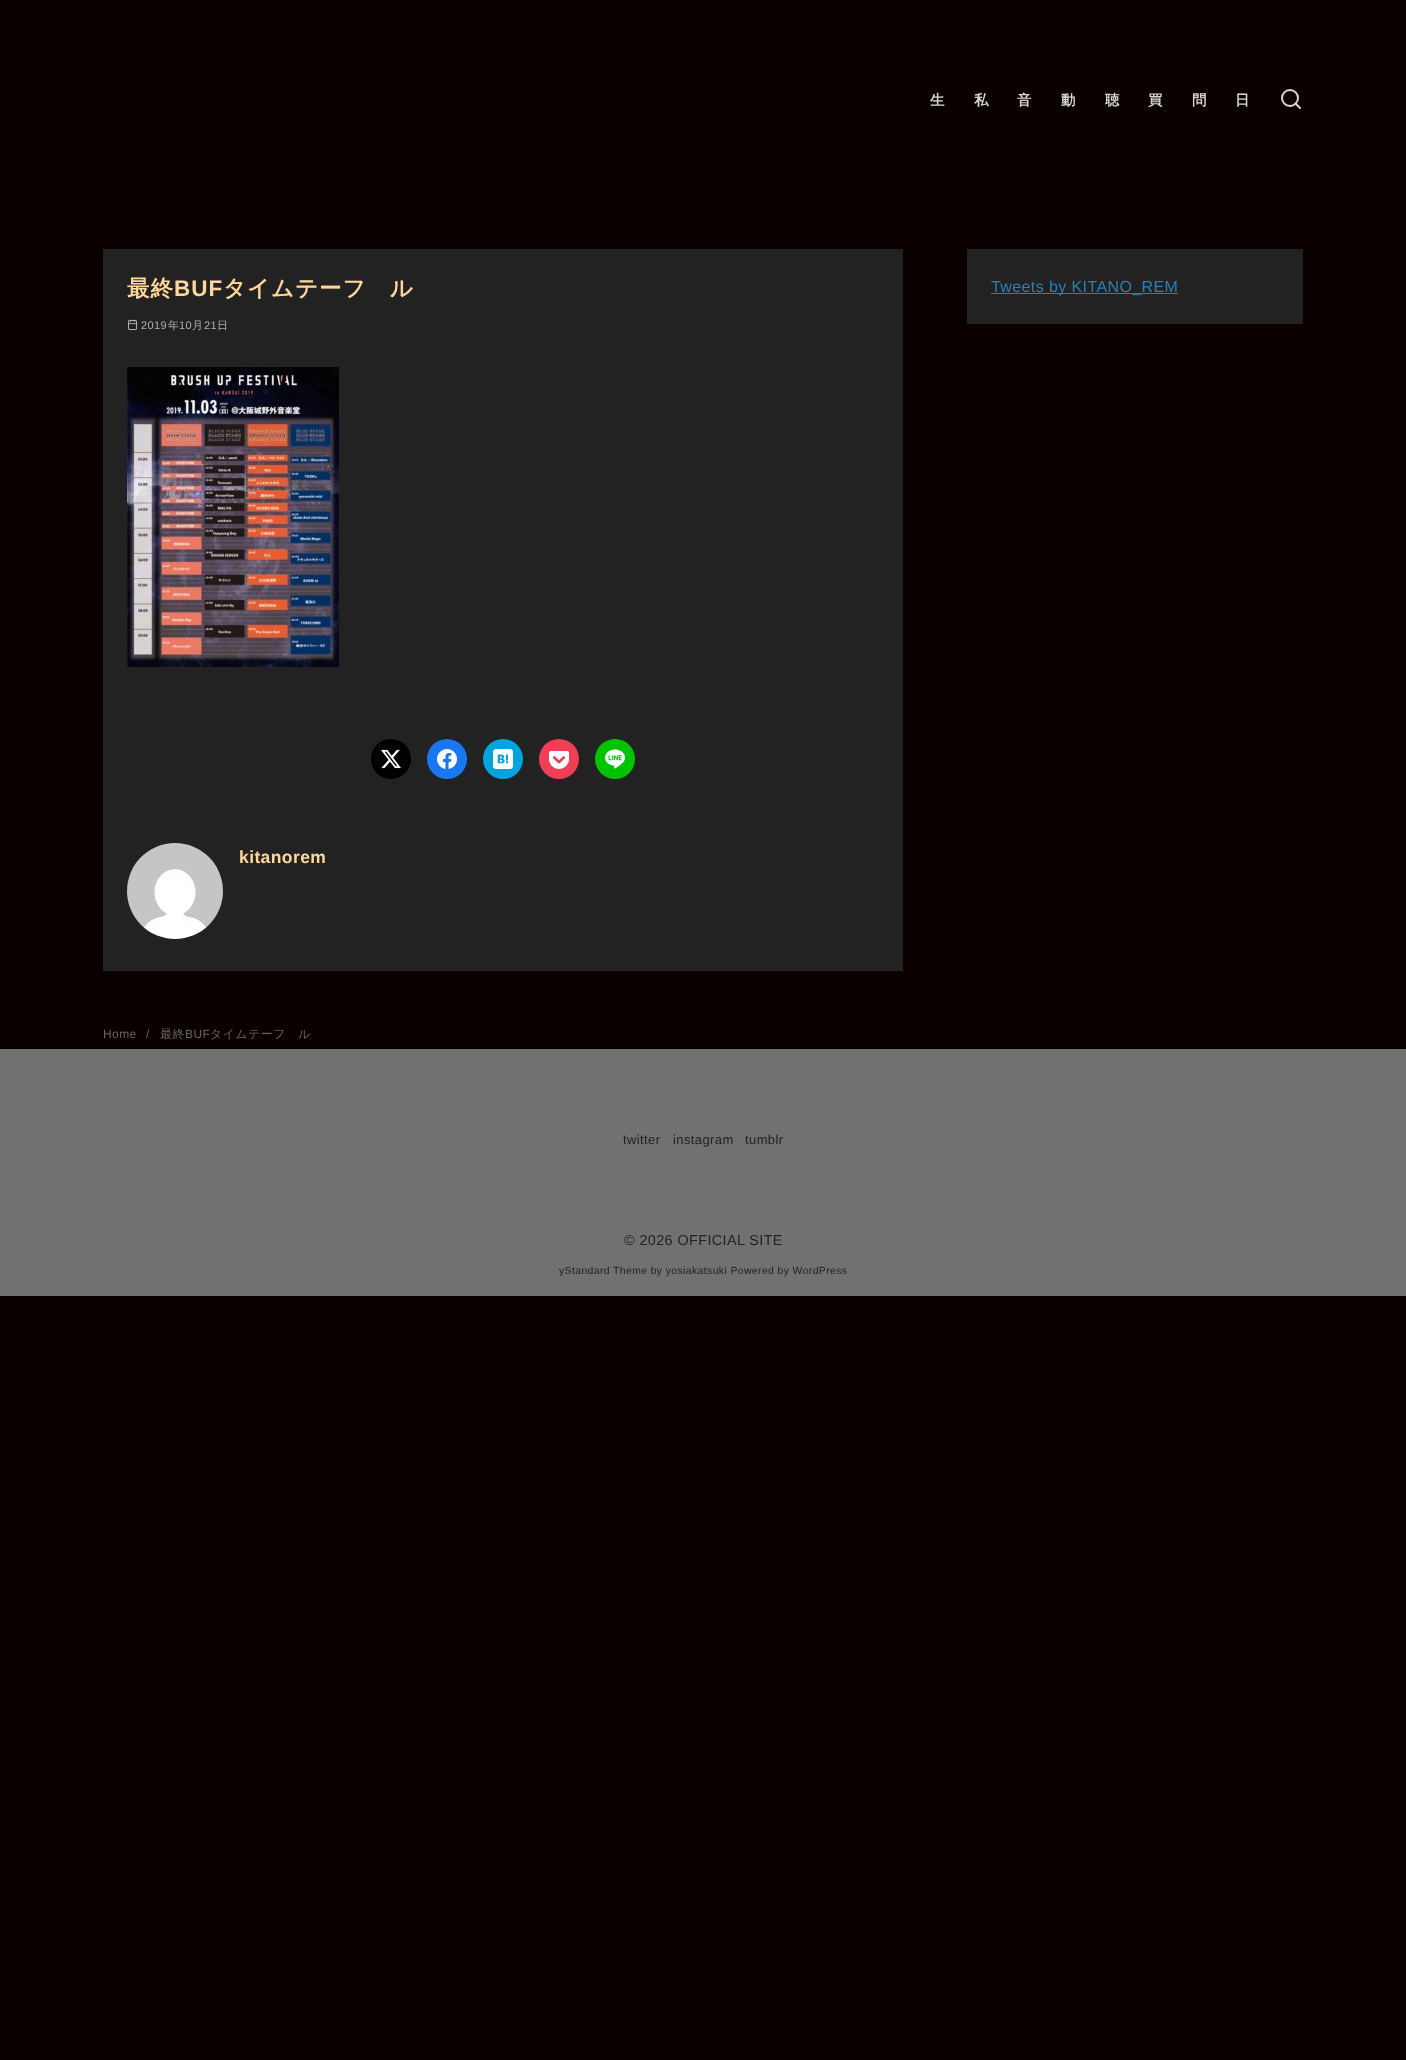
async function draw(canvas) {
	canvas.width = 1406;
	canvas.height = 2060;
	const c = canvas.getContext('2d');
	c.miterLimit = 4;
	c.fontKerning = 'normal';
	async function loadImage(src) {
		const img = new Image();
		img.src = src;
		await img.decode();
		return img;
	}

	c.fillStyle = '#0a0000';
	c.fillRect(0, 0, 1406, 2060);
	c.letterSpacing = '0.4px';
	c.font = 'bold 14.4px WenQuanYi Zen Hei';
	c.fillStyle = '#d8d8d8';
	for (const [text, x, y] of [
		['生', 930, 105],
		['私', 974, 105],
		['音', 1017, 105],
		['動', 1061, 105],
		['聴', 1105, 105],
		['買', 1148, 105],
		['問', 1192, 105],
		['日', 1235, 105],
	]) {
		c.fillText(text, x, y);
	}
	c.beginPath();
	c.arc(1290, 98, 8, 0, 2 * Math.PI);
	c.strokeStyle = '#d8d8d8';
	c.lineWidth = 2;
	c.stroke();
	c.beginPath();
	c.moveTo(1300, 108);
	c.lineTo(1295.5, 103.5);
	c.lineCap = 'round';
	c.lineJoin = 'round';
	c.stroke();
	c.fillStyle = '#222';
	c.fillRect(103, 249, 800, 722);
	c.letterSpacing = '1px';
	c.font = 'bold 22.5px WenQuanYi Zen Hei';
	c.fillStyle = '#ffd79b';
	c.fillText('最終', 127, 296);
	c.font = 'bold 22.5px Liberation Sans';
	c.fillText('BUF', 174, 296);
	c.font = 'bold 22.5px WenQuanYi Zen Hei';
	c.fillText('タイムテーブル', 223, 296);
	c.drawImage(await loadImage('img1.png'), 128, 319, 10, 11);
	c.letterSpacing = '0.4px';
	c.font = '11px Liberation Sans';
	c.fillStyle = '#afafaf';
	c.fillText('2019', 141, 329);
	c.font = '500 11px WenQuanYi Zen Hei';
	c.fillText('年', 168, 329);
	c.font = '11px Liberation Sans';
	c.fillText('10', 179, 329);
	c.font = '500 11px WenQuanYi Zen Hei';
	c.fillText('月', 192, 329);
	c.font = '11px Liberation Sans';
	c.fillText('21', 204, 329);
	c.font = '500 11px WenQuanYi Zen Hei';
	c.fillText('日', 217, 329);
	c.drawImage(await loadImage('img2.png'), 127, 367, 212, 300);
	c.fillStyle = '#000';
	c.beginPath();
	c.arc(391, 759, 20, 0, 2 * Math.PI);
	c.fill();
	c.drawImage(await loadImage('img3.png'), 381, 749, 20, 20);
	c.fillStyle = '#1977f2';
	c.beginPath();
	c.arc(447, 759, 20, 0, 2 * Math.PI);
	c.fill();
	c.drawImage(await loadImage('img4.png'), 437, 749, 20, 20);
	c.fillStyle = '#00a4de';
	c.beginPath();
	c.arc(503, 759, 20, 0, 2 * Math.PI);
	c.fill();
	c.drawImage(await loadImage('img5.png'), 493, 749, 20, 20);
	c.fillStyle = '#ef3f56';
	c.beginPath();
	c.arc(559, 759, 20, 0, 2 * Math.PI);
	c.fill();
	c.drawImage(await loadImage('img6.png'), 549, 751, 20, 18);
	c.fillStyle = '#00c300';
	c.beginPath();
	c.arc(615, 759, 20, 0, 2 * Math.PI);
	c.fill();
	c.drawImage(await loadImage('img7.png'), 605, 749, 20, 20);
	c.drawImage(await loadImage('img8.png'), 127, 843, 96, 96);
	c.font = 'bold 17.5px Liberation Sans';
	c.fillStyle = '#ffd79b';
	c.fillText('kitanorem', 239, 863);
	c.fillStyle = '#222';
	c.fillRect(967, 249, 336, 75);
	c.fillStyle = '#2980b9';
	c.fillRect(991, 293, 187, 1);
	c.font = '16px Liberation Sans';
	c.fillText('Tweets by KITANO_REM', 991, 292);
	c.font = '12px Liberation Sans';
	c.fillStyle = '#656565';
	c.fillText('Home', 103, 1038);
	c.fillText('/', 146, 1038);
	c.font = '500 12px WenQuanYi Zen Hei';
	c.fillText('最終', 160, 1038);
	c.font = '12px Liberation Sans';
	c.fillText('BUF', 185, 1038);
	c.font = '500 12px WenQuanYi Zen Hei';
	c.fillText('タイムテーブル', 210, 1038);
	c.fillStyle = '#727171';
	c.fillRect(0, 1049, 1406, 247);
	c.font = '13px Liberation Sans';
	c.fillStyle = '#222';
	for (const [text, x, y] of [
		['twitter', 623, 1144],
		['instagram', 673, 1144],
		['tumblr', 745, 1144],
	]) {
		c.fillText(text, x, y);
	}
	c.font = '14.4px Liberation Sans';
	c.fillText('© 2026 OFFICIAL SITE', 624, 1245);
	c.font = '10.4px Liberation Sans';
	c.fillText('yStandard Theme by yosiakatsuki Powered by WordPress', 559, 1274);
}

draw(document.querySelector('canvas'));
